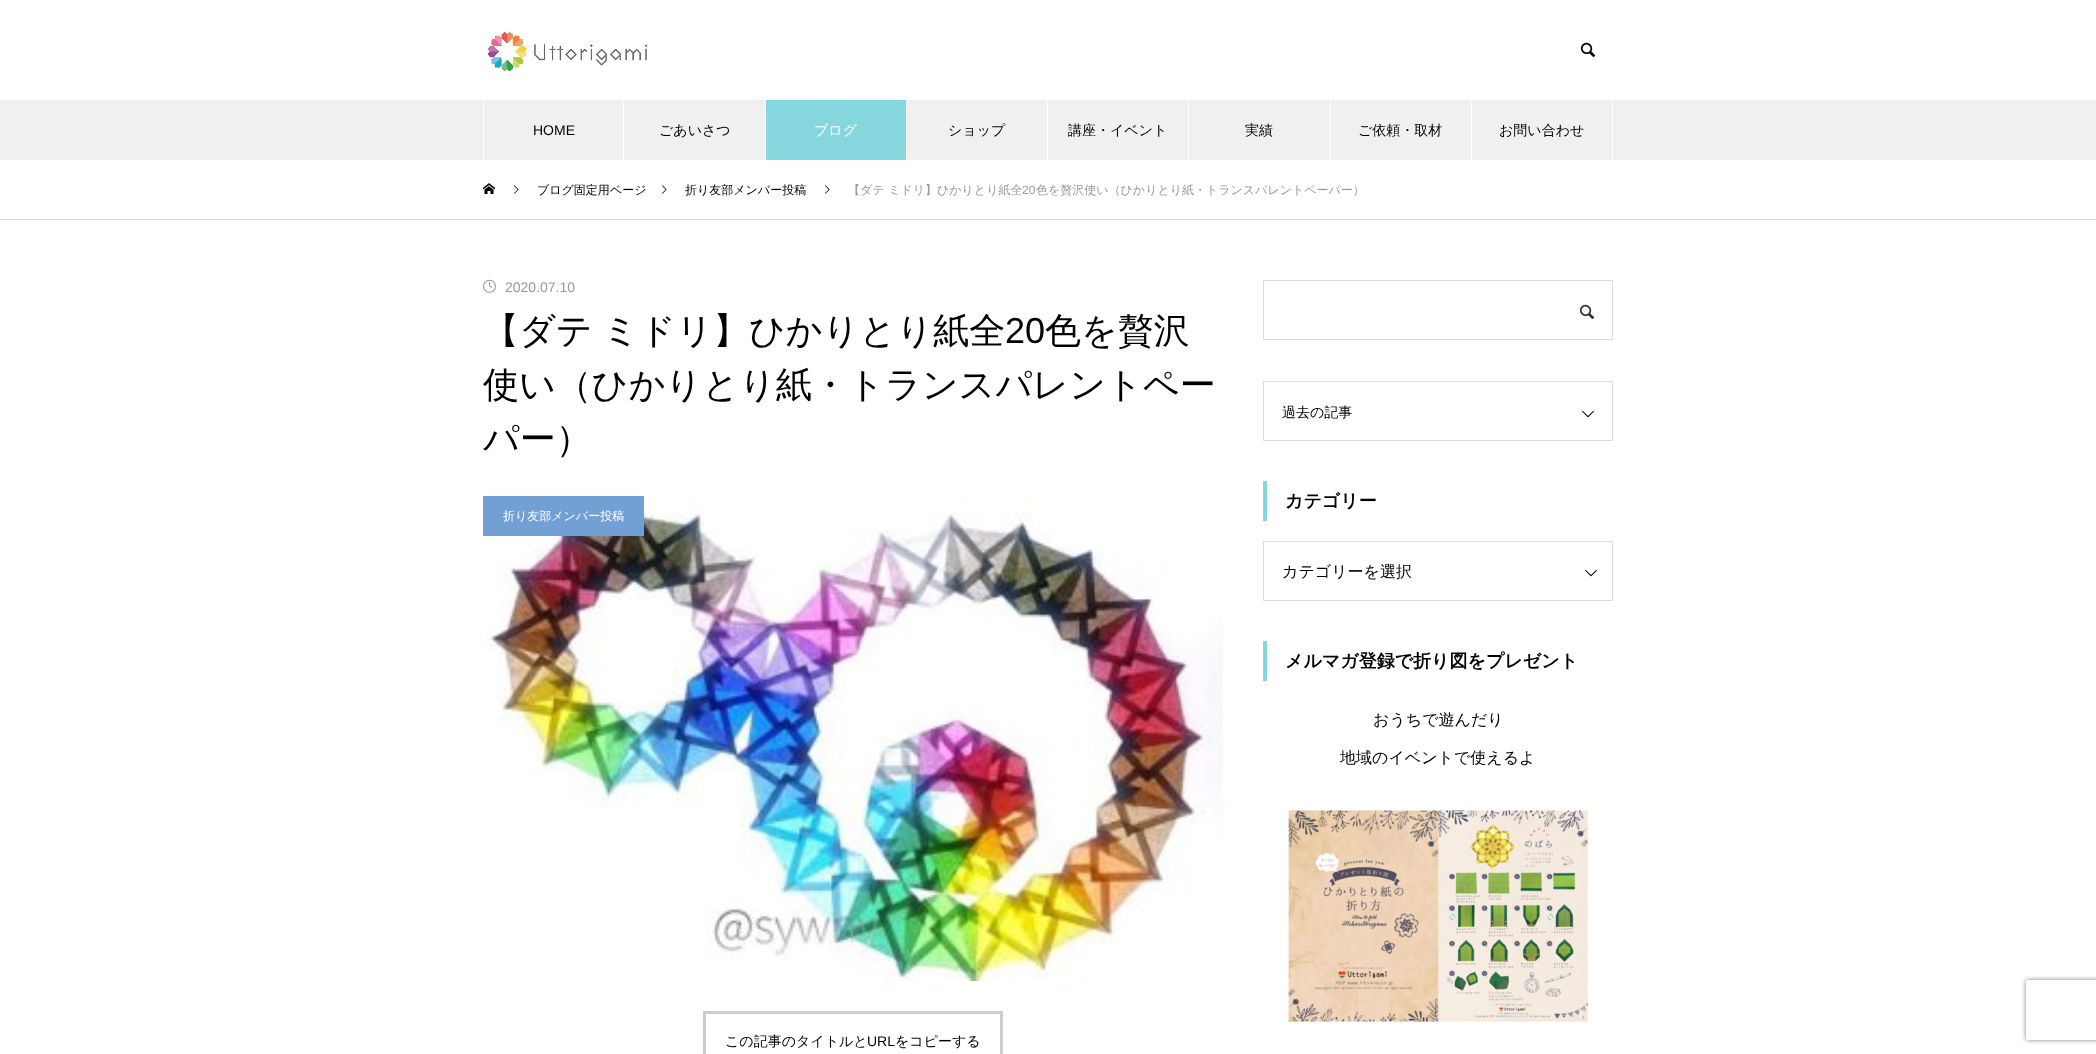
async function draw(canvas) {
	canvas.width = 2096;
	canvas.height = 1054;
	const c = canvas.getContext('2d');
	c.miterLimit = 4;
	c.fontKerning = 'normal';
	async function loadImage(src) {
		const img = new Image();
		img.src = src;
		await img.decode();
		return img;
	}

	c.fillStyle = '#fff';
	c.fillRect(0, 0, 2096, 1054);
	c.drawImage(await loadImage('img1.png'), 485, 27, 163, 47);
	c.drawImage(await loadImage('img2.png'), 1580, 42, 16, 15);
	for (const [x, y, w, h, color] of [
		[0, 100, 2096, 60, '#f0f0f0'],
		[623, 100, 1, 60, '#fff'],
		[483, 100, 1, 60, '#fff'],
	]) {
		c.fillStyle = color;
		c.fillRect(x, y, w, h);
	}
	c.font = '14px Liberation Sans';
	c.fillStyle = '#000';
	c.fillText('HOME', 533, 135);
	c.fillStyle = '#fff';
	c.fillRect(765, 100, 1, 60);
	c.font = '500 14px WenQuanYi Zen Hei';
	c.fillStyle = '#000';
	c.fillText('ごあいさつ', 659, 135);
	c.fillStyle = '#86d6dd';
	c.fillRect(766, 100, 140, 60);
	c.fillStyle = '#fff';
	c.fillRect(906, 100, 1, 60);
	c.fillText('ブログ', 814, 135);
	c.fillRect(1047, 100, 1, 60);
	c.fillStyle = '#000';
	c.fillText('ショップ', 948, 135);
	c.fillStyle = '#fff';
	c.fillRect(1188, 100, 1, 60);
	c.fillStyle = '#000';
	c.fillText('講座・イベント', 1068, 135);
	c.fillStyle = '#fff';
	c.fillRect(1330, 100, 1, 60);
	c.fillStyle = '#000';
	c.fillText('実績', 1245, 135);
	c.fillStyle = '#fff';
	c.fillRect(1471, 100, 1, 60);
	c.fillStyle = '#000';
	c.fillText('ご依頼・取材', 1358, 135);
	c.fillStyle = '#fff';
	c.fillRect(1612, 100, 1, 60);
	c.fillStyle = '#000';
	c.fillText('お問い合わせ', 1499, 135);
	c.fillStyle = '#ddd';
	c.fillRect(0, 219, 2096, 1);
	c.drawImage(await loadImage('img3.png'), 483, 183, 12, 11);
	c.drawImage(await loadImage('img4.png'), 514, 185, 5, 9);
	c.font = '500 12px WenQuanYi Zen Hei';
	c.fillStyle = '#000';
	c.fillText('ブログ固定用ページ', 537, 194);
	c.drawImage(await loadImage('img4.png'), 662, 185, 5, 9);
	c.fillText('折り友部メンバー投稿', 685, 194);
	c.drawImage(await loadImage('img4.png'), 825, 185, 5, 9);
	c.fillStyle = '#999';
	c.fillText('【ダテ ミドリ】ひかりとり紙全', 848, 194);
	c.font = '12px Liberation Sans';
	c.fillText('20', 1022, 194);
	c.font = '500 12px WenQuanYi Zen Hei';
	c.fillText('色を贅沢使い（ひかりとり紙・トランスパレントペーパー）', 1036, 194);
	c.drawImage(await loadImage('img5.png'), 483, 279, 13, 14);
	c.font = '14px Liberation Sans';
	c.fillText('2020.07.10', 505, 292);
	c.wordSpacing = '-1px';
	c.font = '500 36px WenQuanYi Zen Hei';
	c.fillStyle = '#000';
	c.fillText('【ダテ ミドリ】ひかりとり紙全', 483, 343);
	c.wordSpacing = '0px';
	c.font = '36px Liberation Sans';
	c.fillText('20', 1005, 343);
	c.font = '500 36px WenQuanYi Zen Hei';
	for (const [text, x, y] of [
		['色を贅沢', 1045, 343],
		['使い（ひかりとり紙・トランスパレントペー', 483, 397],
		['パー）', 483, 451],
	]) {
		c.fillText(text, x, y);
	}
	c.drawImage(await loadImage('img6.png'), 485, 496, 738, 485);
	c.fillStyle = '#72a0d4';
	c.fillRect(483, 496, 161, 40);
	c.font = '500 12px WenQuanYi Zen Hei';
	c.fillStyle = '#fff';
	c.fillText('折り友部メンバー投稿', 503, 520);
	c.strokeStyle = '#ccc';
	c.lineWidth = 3;
	c.strokeRect(704.5, 1012.5, 297, 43);
	c.font = '500 14px WenQuanYi Zen Hei';
	c.fillStyle = '#000';
	c.fillText('この記事のタイトルと', 725, 1046);
	c.font = '14px Liberation Sans';
	c.fillText('URL', 867, 1046);
	c.font = '500 14px WenQuanYi Zen Hei';
	c.fillText('をコピーする', 895, 1046);
	c.strokeStyle = '#ddd';
	c.lineWidth = 1;
	c.strokeRect(1263.5, 280.5, 349, 59);
	c.drawImage(await loadImage('img7.png'), 1579, 304, 16, 15);
	c.strokeRect(1263.5, 381.5, 349, 59);
	c.fillText('過去の記事', 1282, 417);
	c.drawImage(await loadImage('img8.png'), 1582, 410, 12, 8);
	c.fillStyle = '#86d6dd';
	c.fillRect(1263, 481, 4, 40);
	c.font = 'bold 18px WenQuanYi Zen Hei';
	c.fillStyle = '#000';
	c.fillText('カテゴリー', 1285, 507);
	c.strokeRect(1263.5, 541.5, 349, 59);
	c.font = '500 16px WenQuanYi Zen Hei';
	c.fillText('カテゴリーを選択', 1282, 577);
	c.drawImage(await loadImage('img8.png'), 1585, 569, 12, 8);
	c.fillStyle = '#86d6dd';
	c.fillRect(1263, 641, 4, 40);
	c.font = 'bold 18px WenQuanYi Zen Hei';
	c.fillStyle = '#000';
	c.fillText('メルマガ登録で折り図をプレゼント', 1285, 667);
	c.font = '500 16px WenQuanYi Zen Hei';
	c.fillText('おうちで遊んだり', 1373, 725);
	c.fillText('地域のイベントで使えるよ', 1340, 763);
	c.drawImage(await loadImage('img9.png'), 1288, 810, 300, 212);
	c.save();
	c.beginPath();
	c.moveTo(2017, 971);
	c.lineTo(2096, 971);
	c.lineTo(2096, 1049);
	c.lineTo(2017, 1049);
	c.closePath();
	c.moveTo(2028, 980);
	c.lineTo(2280, 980);
	c.bezierCurveTo(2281, 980, 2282, 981, 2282, 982);
	c.lineTo(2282, 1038);
	c.bezierCurveTo(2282, 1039, 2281, 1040, 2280, 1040);
	c.lineTo(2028, 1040);
	c.bezierCurveTo(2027, 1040, 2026, 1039, 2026, 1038);
	c.lineTo(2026, 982);
	c.bezierCurveTo(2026, 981, 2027, 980, 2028, 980);
	c.closePath();
	c.clip('evenodd');
	c.fillStyle = '#808080';
	c.filter = 'blur(2.5px)';
	c.beginPath();
	c.roundRect(2026, 980, 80, 60, 2);
	c.fill();
	c.filter = 'none';
	c.restore();
}

draw(document.querySelector('canvas'));
